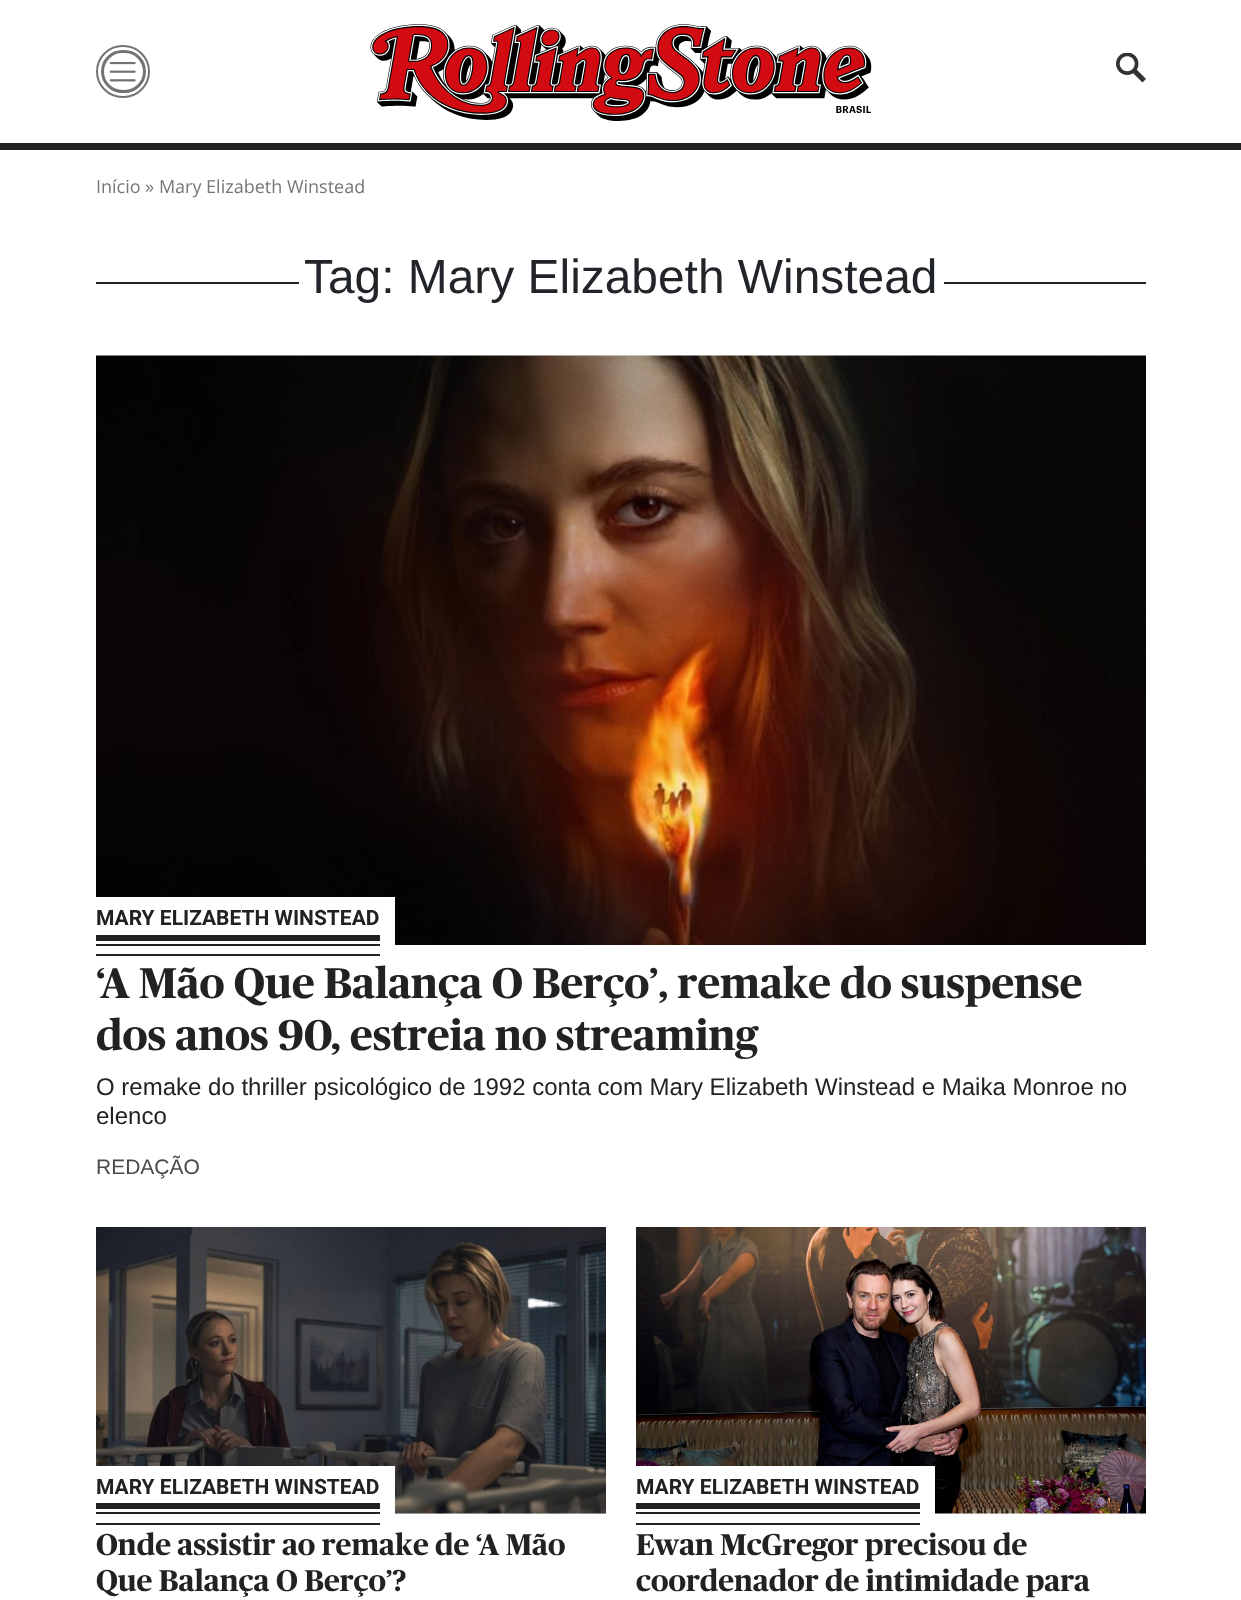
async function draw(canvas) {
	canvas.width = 1241;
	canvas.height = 1600;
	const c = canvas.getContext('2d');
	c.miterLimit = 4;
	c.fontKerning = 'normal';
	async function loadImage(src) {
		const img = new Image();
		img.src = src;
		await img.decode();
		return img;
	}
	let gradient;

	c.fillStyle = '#fff';
	c.fillRect(0, 0, 1241, 1600);
	c.fillStyle = '#222';
	c.fillRect(0, 143, 1241, 7);
	c.beginPath();
	c.roundRect(97, 46, 52, 51, 25.5);
	c.strokeStyle = '#737373';
	c.lineWidth = 2;
	c.stroke();
	c.drawImage(await loadImage('img1.png'), 109, 61, 27, 21);
	c.beginPath();
	c.roundRect(102.5, 51.5, 42, 40, 20);
	c.lineWidth = 3;
	c.stroke();
	c.drawImage(await loadImage('img2.png'), 370, 24, 502, 97);
	c.drawImage(await loadImage('img3.png'), 1116, 53, 30, 30);
	c.font = '18px Open Sans';
	c.fillStyle = '#767676';
	c.fillText('Início » Mary Elizabeth Winstead', 96, 193);
	c.fillStyle = '#222';
	c.fillRect(96, 282, 203, 2);
	c.font = '47.9px Liberation Sans';
	c.fillStyle = '#212529';
	c.fillText('Tag: Mary Elizabeth Winstead', 304, 293);
	c.fillStyle = '#222';
	c.fillRect(944, 282, 202, 2);
	c.drawImage(await loadImage('img4.png'), 96, 355, 1050, 590);
	for (const [x, y, w, h, color] of [
		[96, 897, 299, 48, '#fff'],
		[96, 944, 284, 2, '#222'],
		[96, 954, 284, 2, '#222'],
	]) {
		c.fillStyle = color;
		c.fillRect(x, y, w, h);
	}
	c.font = 'bold 21px Roboto';
	c.fillText('MARY ELIZABETH WINSTEAD', 96, 925);
	c.fillRect(96, 935, 284, 6);
	c.font = 'bold 43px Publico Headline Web';
	c.fillText('‘A Mão Que Balança O Berço’, remake do suspense', 96, 998);
	c.fillText('dos anos 90, estreia no streaming', 96, 1050);
	c.font = '24px Liberation Sans';
	c.fillText('O remake do thriller psicológico de 1992 conta com Mary Elizabeth Winstead e Maika Monroe no', 96, 1095);
	c.fillText('elenco', 96, 1124);
	c.font = '21px Liberation Sans';
	c.fillStyle = '#4b4b4b';
	c.fillText('REDAÇÃO', 96, 1174);
	gradient = c.createLinearGradient(96, 1370, 1116, 1370);
	gradient.addColorStop(0.25, '#f0f0f0');
	gradient.addColorStop(0.5, '#e0e0e0');
	gradient.addColorStop(0.75, '#f0f0f0');
	c.fillStyle = gradient;
	c.fillRect(395, 1513, 211, 1);
	c.drawImage(await loadImage('img5.png'), 96, 1227, 510, 287);
	for (const [x, y, w, h, color] of [
		[96, 1466, 299, 48, '#fff'],
		[96, 1512, 284, 2, '#222'],
		[96, 1523, 284, 2, '#222'],
	]) {
		c.fillStyle = color;
		c.fillRect(x, y, w, h);
	}
	c.font = 'bold 21px Roboto';
	c.fillText('MARY ELIZABETH WINSTEAD', 96, 1494);
	c.fillRect(96, 1503, 284, 6);
	c.font = 'bold 30px Publico Headline Web';
	c.fillText('Onde assistir ao remake de ‘A Mão', 96, 1555);
	c.fillText('Que Balança O Berço’?', 96, 1591);
	c.drawImage(await loadImage('img6.png'), 636, 1227, 510, 287);
	for (const [x, y, w, h, color] of [
		[636, 1466, 299, 48, '#fff'],
		[636, 1512, 284, 2, '#222'],
		[636, 1523, 284, 2, '#222'],
	]) {
		c.fillStyle = color;
		c.fillRect(x, y, w, h);
	}
	c.font = 'bold 21px Roboto';
	c.fillText('MARY ELIZABETH WINSTEAD', 636, 1494);
	c.fillRect(636, 1503, 284, 6);
	c.font = 'bold 30px Publico Headline Web';
	c.fillText('Ewan McGregor precisou de', 636, 1555);
	c.fillText('coordenador de intimidade para', 636, 1591);
}

draw(document.querySelector('canvas'));
